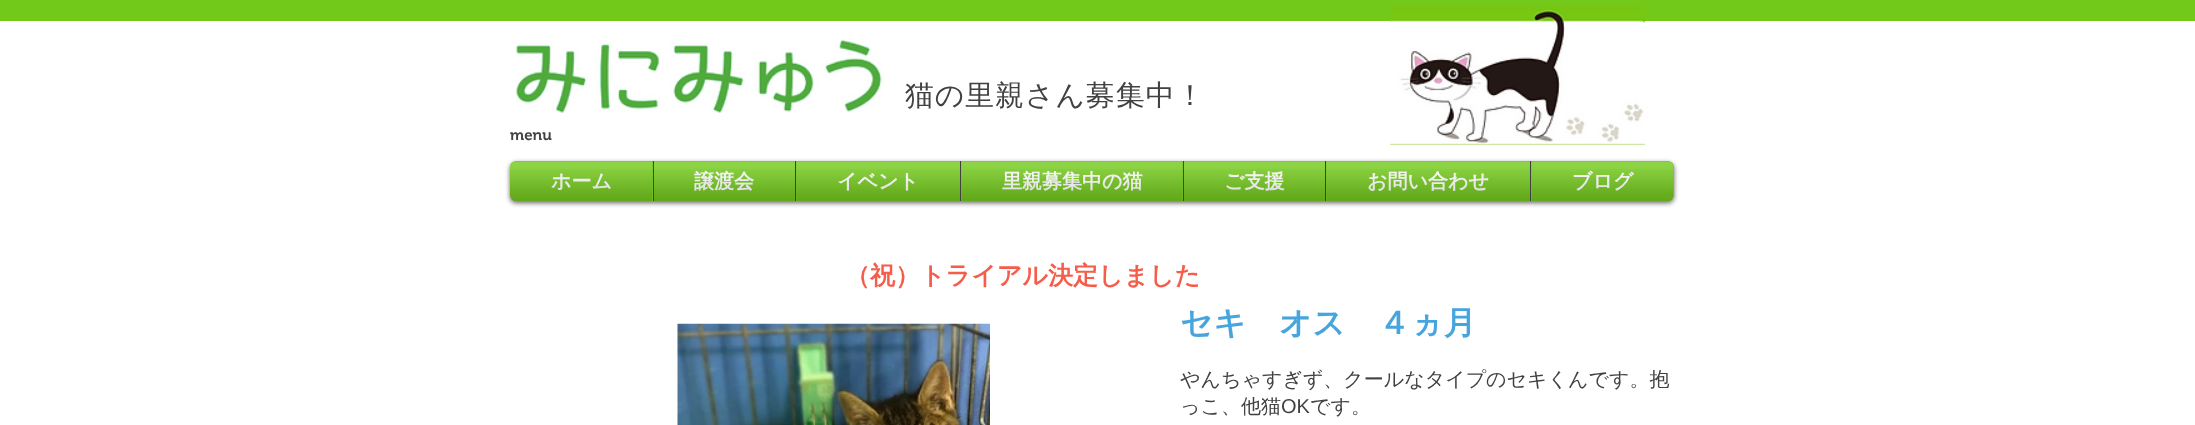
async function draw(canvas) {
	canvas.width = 2195;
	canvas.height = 425;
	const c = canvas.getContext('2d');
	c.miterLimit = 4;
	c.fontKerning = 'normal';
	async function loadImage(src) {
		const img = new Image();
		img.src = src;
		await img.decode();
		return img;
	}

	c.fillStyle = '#fff';
	c.fillRect(0, 0, 2195, 425);
	c.fillStyle = '#72c91a';
	c.fillRect(0, 0, 2195, 21);
	c.drawImage(await loadImage('img1.png'), 516, 39, 366, 74);
	c.letterSpacing = '1.1px';
	c.font = '500 28.75px WenQuanYi Zen Hei';
	c.fillStyle = '#414141';
	c.fillText('猫の里親さん募集中！', 905, 105);
	c.drawImage(await loadImage('img2.png'), 1390, 5, 255, 140);
	c.letterSpacing = '0px';
	c.font = '600 15px "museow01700"';
	c.fillText('menu', 510, 140);
	c.fillStyle = '#00000099';
	c.filter = 'blur(2.5px)';
	c.beginPath();
	c.roundRect(510, 163, 1164, 40, 6);
	c.fill();
	c.filter = 'none';
	c.drawImage(await loadImage('img3.png'), 510, 161, 1164, 40);
	c.drawImage(await loadImage('img4.png'), 510, 195, 1164, 6);
	c.fillStyle = '#72c91a';
	c.beginPath();
	c.roundRect(510, 161, 143, 40, [6, 0, 0, 6]);
	c.fill();
	c.font = 'bold 20px WenQuanYi Zen Hei';
	c.fillStyle = '#fff';
	c.fillText('ホーム', 551, 188);
	c.drawImage(await loadImage('img5.png'), 510, 161, 143, 40);
	c.drawImage(await loadImage('img6.png'), 510, 169, 143, 32);
	c.fillStyle = '#72c91a';
	c.fillRect(654, 161, 141, 40);
	c.fillStyle = '#414141';
	c.fillRect(653, 161, 1, 40);
	c.fillStyle = '#fff';
	c.fillText('譲渡会', 694, 188);
	c.drawImage(await loadImage('img7.png'), 653, 161, 142, 40);
	c.drawImage(await loadImage('img8.png'), 654, 169, 141, 32);
	c.fillStyle = '#72c91a';
	c.fillRect(796, 161, 164, 40);
	c.fillStyle = '#414141';
	c.fillRect(795, 161, 1, 40);
	c.fillStyle = '#fff';
	c.fillText('イベント', 837, 188);
	c.drawImage(await loadImage('img9.png'), 796, 161, 164, 40);
	c.drawImage(await loadImage('img10.png'), 796, 169, 164, 32);
	c.fillStyle = '#72c91a';
	c.fillRect(961, 161, 222, 40);
	c.fillStyle = '#414141';
	c.fillRect(960, 161, 1, 40);
	c.fillStyle = '#fff';
	c.fillText('里親募集中の猫', 1002, 188);
	c.drawImage(await loadImage('img11.png'), 961, 161, 222, 40);
	c.drawImage(await loadImage('img12.png'), 961, 169, 222, 32);
	c.fillStyle = '#72c91a';
	c.fillRect(1184, 161, 141, 40);
	c.fillStyle = '#414141';
	c.fillRect(1183, 161, 1, 40);
	c.fillStyle = '#fff';
	c.fillText('ご支援', 1224, 188);
	c.drawImage(await loadImage('img13.png'), 1183, 161, 142, 40);
	c.drawImage(await loadImage('img14.png'), 1184, 169, 141, 32);
	c.fillStyle = '#72c91a';
	c.fillRect(1326, 161, 204, 40);
	c.fillStyle = '#414141';
	c.fillRect(1325, 161, 1, 40);
	c.fillStyle = '#fff';
	c.fillText('お問い合わせ', 1367, 188);
	c.drawImage(await loadImage('img15.png'), 1326, 161, 204, 40);
	c.drawImage(await loadImage('img16.png'), 1326, 169, 204, 32);
	c.fillStyle = '#72c91a';
	c.beginPath();
	c.roundRect(1530, 161, 144, 40, [0, 6, 6, 0]);
	c.fill();
	c.fillStyle = '#414141';
	c.fillRect(1530, 161, 1, 40);
	c.fillStyle = '#fff';
	c.fillText('ブログ', 1572, 188);
	c.drawImage(await loadImage('img17.png'), 1531, 161, 143, 40);
	c.drawImage(await loadImage('img18.png'), 1531, 169, 143, 32);
	c.font = 'bold 25px WenQuanYi Zen Hei';
	c.fillStyle = '#f55c4a';
	c.fillText('（祝）トライアル決定しました', 845, 284);
	c.drawImage(await loadImage('img19.png'), 677, 323, 313, 102);
	c.font = 'bold 32.5px WenQuanYi Zen Hei';
	c.fillStyle = '#47a5de';
	c.fillText('セキ　オス　４ヵ月', 1180, 334);
	c.font = '500 20px WenQuanYi Zen Hei';
	c.fillStyle = '#414141';
	c.fillText('やんちゃすぎず、クールなタイプのセキくんです。抱', 1180, 386);
	c.fillText('っこ、他猫', 1180, 413);
	c.font = '20px Liberation Sans';
	c.fillText('OK', 1281, 413);
	c.font = '500 20px WenQuanYi Zen Hei';
	c.fillText('です。', 1310, 413);
}

draw(document.querySelector('canvas'));
